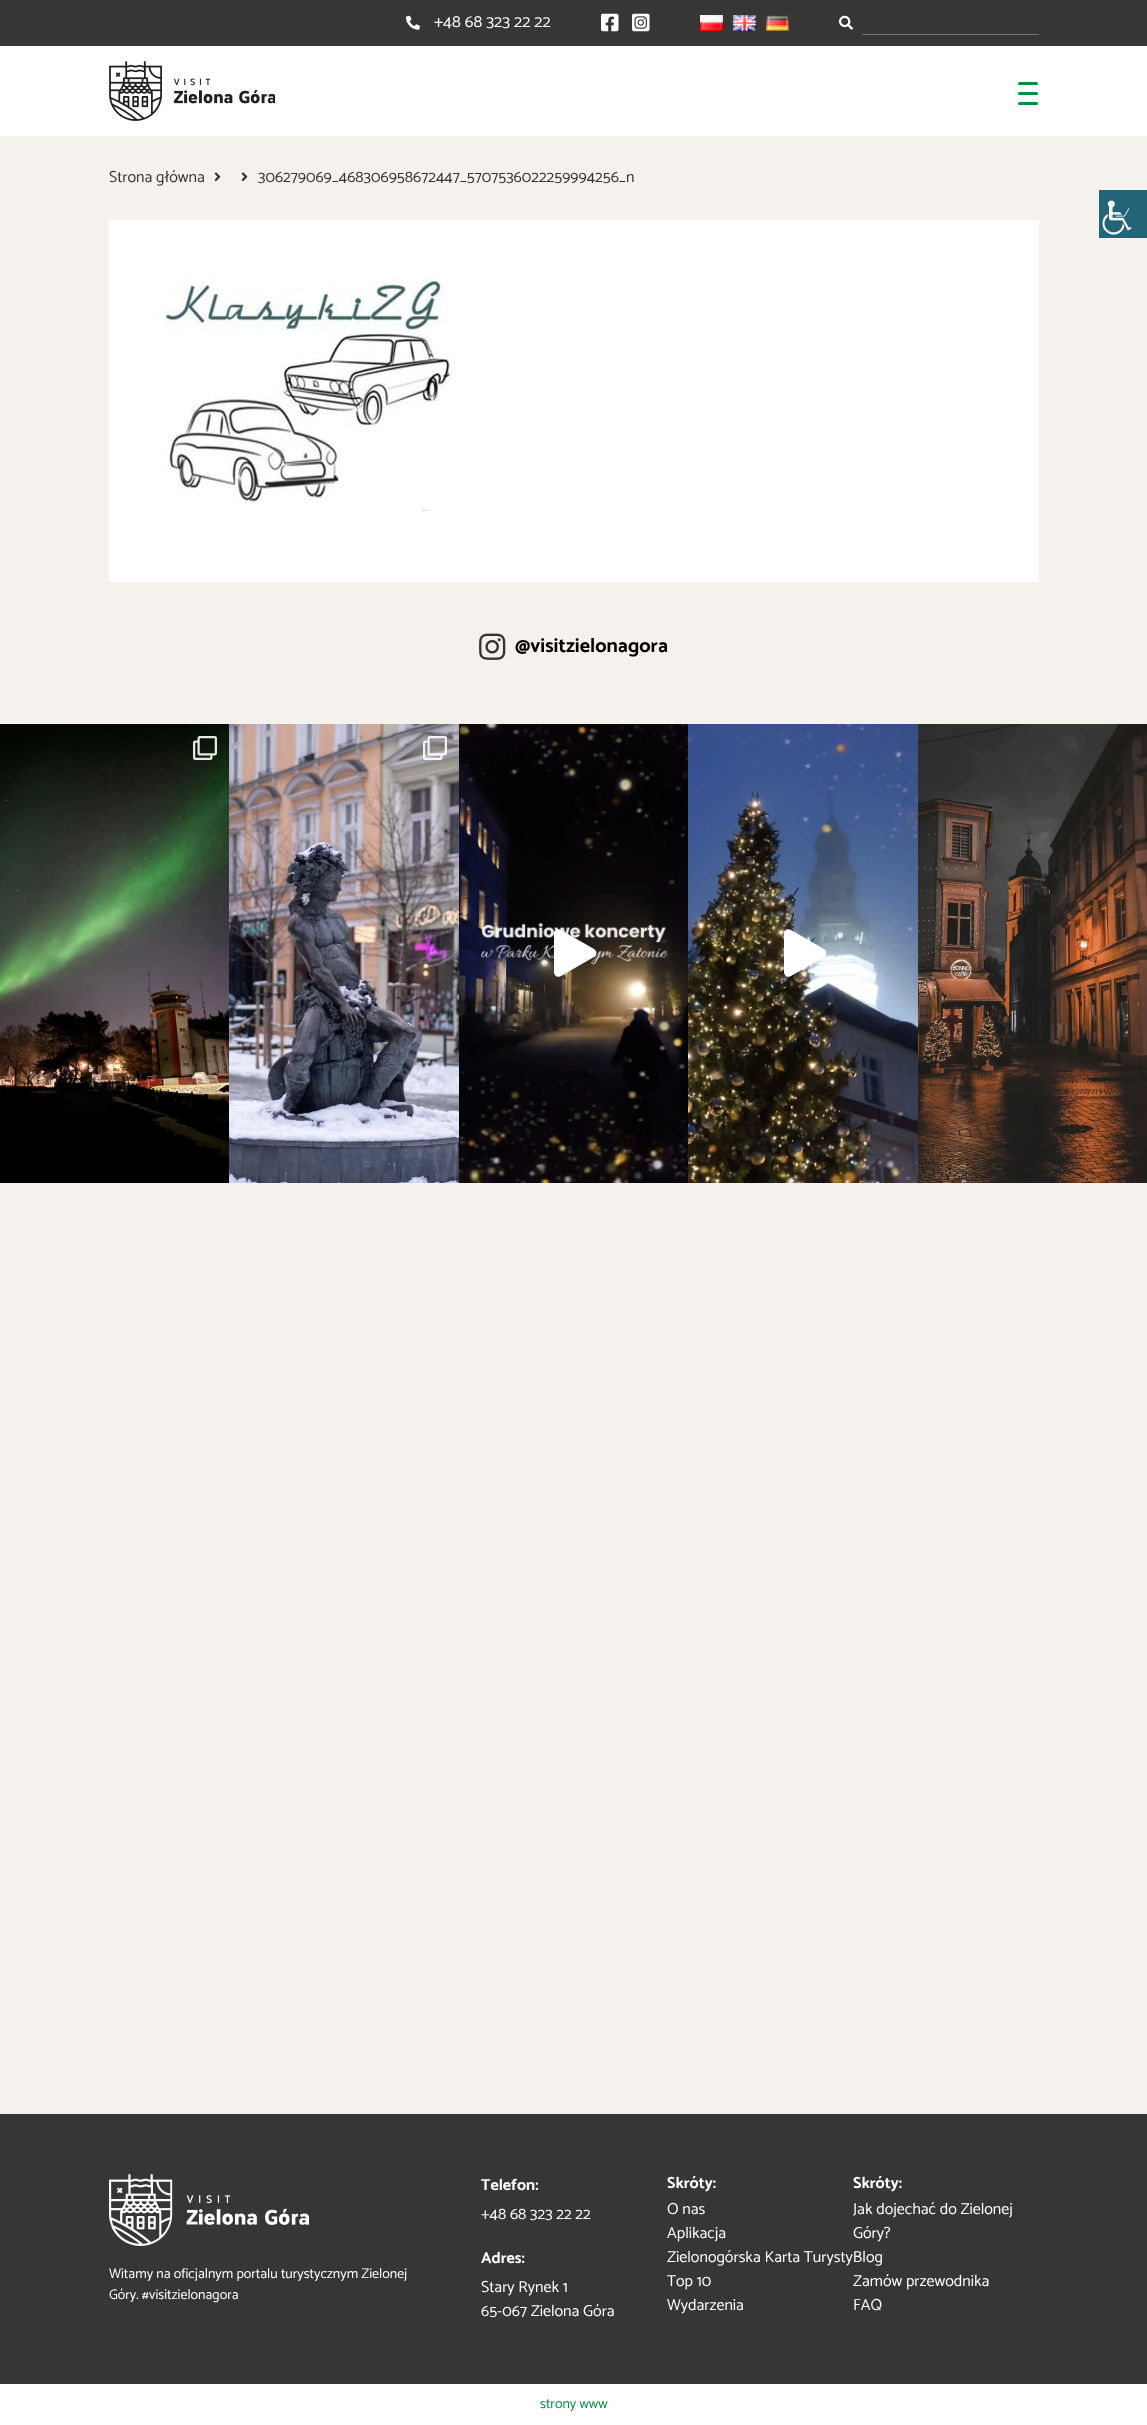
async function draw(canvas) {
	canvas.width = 1147;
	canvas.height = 2425;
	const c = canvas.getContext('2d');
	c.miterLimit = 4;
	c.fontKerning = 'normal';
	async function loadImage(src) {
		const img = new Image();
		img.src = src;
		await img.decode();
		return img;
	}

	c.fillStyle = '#fff';
	c.fillRect(0, 0, 1147, 2425);
	c.fillStyle = '#363636';
	c.fillRect(0, 0, 1147, 46);
	c.drawImage(await loadImage('img1.png'), 406, 15, 14, 15);
	c.font = '17px Catamaran';
	c.fillStyle = '#fff';
	c.fillText('+48 68 323 22 22', 434, 27);
	c.drawImage(await loadImage('img2.png'), 601, 13, 18, 19);
	c.drawImage(await loadImage('img3.png'), 632, 13, 18, 19);
	c.drawImage(await loadImage('img4.png'), 700, 15, 23, 16);
	c.drawImage(await loadImage('img5.png'), 733, 15, 23, 16);
	c.drawImage(await loadImage('img6.png'), 766, 15, 23, 16);
	c.drawImage(await loadImage('img7.png'), 839, 15, 14, 15);
	c.fillStyle = '#717171';
	c.fillRect(862, 34, 177, 1);
	c.drawImage(await loadImage('img8.png'), 109, 61, 166, 60);
	c.fillStyle = '#009140';
	c.beginPath();
	c.roundRect(1018, 82, 20, 3, 1.5);
	c.fill();
	c.beginPath();
	c.roundRect(1018, 92, 20, 3, 1.5);
	c.fill();
	c.beginPath();
	c.roundRect(1018, 102, 20, 3, 1.5);
	c.fill();
	c.fillStyle = '#f5f1ed';
	c.fillRect(0, 136, 1147, 1978);
	c.font = '16px Catamaran';
	c.fillStyle = '#333';
	c.fillText('Strona główna', 109, 182);
	c.drawImage(await loadImage('img9.png'), 214, 172, 7, 10);
	c.drawImage(await loadImage('img9.png'), 241, 172, 7, 10);
	c.fillText('306279069_468306958672447_5707536022259994256_n', 258, 182);
	c.fillStyle = '#fff';
	c.fillRect(109, 220, 930, 362);
	c.drawImage(await loadImage('img10.png'), 159, 275, 296, 237);
	c.drawImage(await loadImage('img11.png'), 479, 633, 27, 27);
	c.font = 'bold 20px Catamaran';
	c.fillStyle = '#000';
	c.fillText('@visitzielonagora', 515, 652);
	c.drawImage(await loadImage('img12.png'), 0, 724, 229, 459);
	c.drawImage(await loadImage('img13.png'), 193, 736, 24, 24);
	c.drawImage(await loadImage('img14.png'), 229, 724, 230, 459);
	c.drawImage(await loadImage('img15.png'), 423, 736, 24, 24);
	c.drawImage(await loadImage('img16.png'), 459, 724, 229, 459);
	c.fillStyle = '#fff';
	c.beginPath();
	c.moveTo(594, 949);
	c.lineTo(561, 930);
	c.bezierCurveTo(558, 928, 554, 930, 554, 933);
	c.lineTo(554, 972);
	c.bezierCurveTo(554, 976, 558, 978, 561, 976);
	c.lineTo(594, 957);
	c.bezierCurveTo(597, 955, 597, 951, 594, 949);
	c.closePath();
	c.fill();
	c.drawImage(await loadImage('img17.png'), 688, 724, 230, 459);
	c.beginPath();
	c.moveTo(824, 949);
	c.lineTo(791, 930);
	c.bezierCurveTo(788, 928, 784, 930, 784, 933);
	c.lineTo(784, 972);
	c.bezierCurveTo(784, 976, 788, 978, 791, 976);
	c.lineTo(824, 957);
	c.bezierCurveTo(827, 955, 827, 951, 824, 949);
	c.closePath();
	c.fill();
	c.drawImage(await loadImage('img18.png'), 918, 724, 229, 459);
	c.drawImage(await loadImage('img19.png'), 1099, 190, 48, 48);
	c.fillStyle = '#363636';
	c.fillRect(0, 2114, 1147, 270);
	c.drawImage(await loadImage('img20.png'), 109, 2174, 200, 72);
	c.font = '14px Catamaran';
	c.fillStyle = '#fff';
	c.fillText('Witamy na oficjalnym portalu turystycznym Zielonej', 109, 2278);
	c.fillText('Góry. #visitzielonagora', 109, 2299);
	c.font = 'bold 16px Catamaran';
	c.fillText('Telefon:', 481, 2190);
	c.font = '16px Catamaran';
	c.fillText('+48 68 323 22 22', 481, 2219);
	c.font = 'bold 16px Catamaran';
	c.fillText('Adres:', 481, 2263);
	c.font = '16px Catamaran';
	c.fillText('Stary Rynek 1', 481, 2292);
	c.fillText('65-067 Zielona Góra', 481, 2316);
	c.font = 'bold 16px Catamaran';
	c.fillText('Skróty:', 667, 2188);
	c.font = '16px Catamaran';
	for (const [text, x, y] of [
		['O nas', 667, 2214],
		['Aplikacja', 667, 2238],
		['Zielonogórska Karta TurystyBlog', 667, 2262],
		['Top 10', 667, 2286],
		['Wydarzenia', 667, 2310],
	]) {
		c.fillText(text, x, y);
	}
	c.font = 'bold 16px Catamaran';
	c.fillText('Skróty:', 853, 2188);
	c.font = '16px Catamaran';
	for (const [text, x, y] of [
		['Jak dojechać do Zielonej', 853, 2214],
		['Góry?', 853, 2238],
		['Zamów przewodnika', 853, 2286],
		['FAQ', 853, 2310],
	]) {
		c.fillText(text, x, y);
	}
	c.font = '14px Catamaran';
	c.fillStyle = '#009140';
	c.fillText('strony www', 540, 2408);
}

draw(document.querySelector('canvas'));
